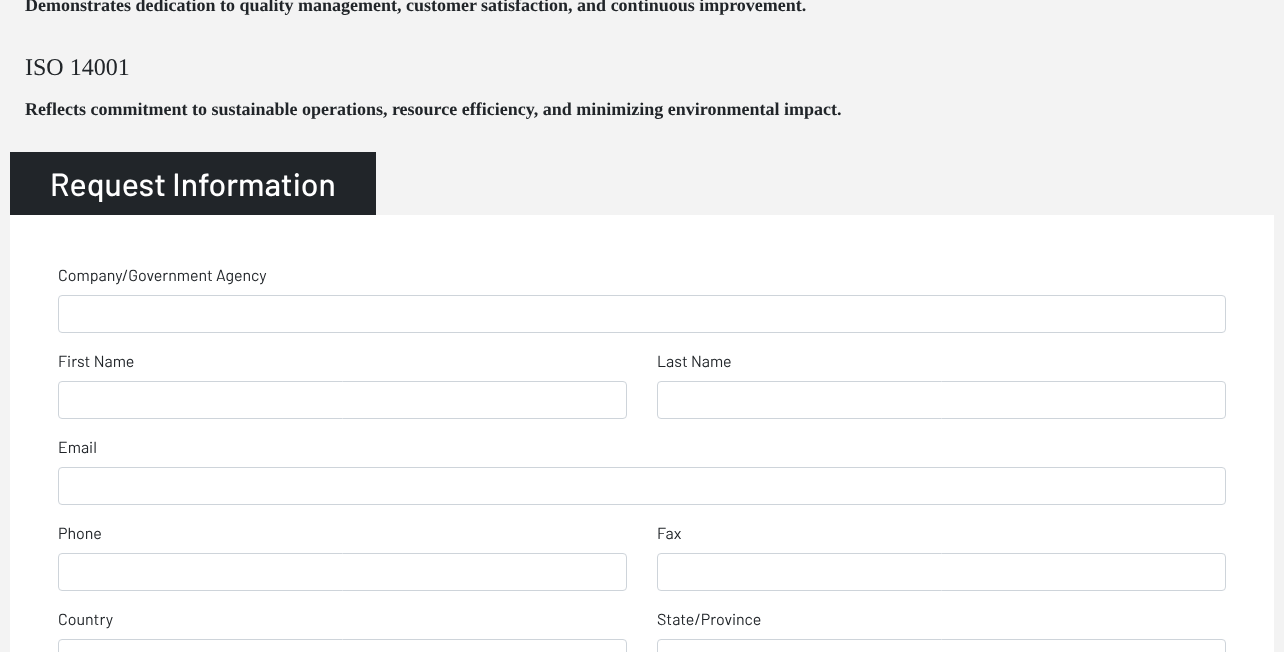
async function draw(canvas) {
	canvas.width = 1284;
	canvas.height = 652;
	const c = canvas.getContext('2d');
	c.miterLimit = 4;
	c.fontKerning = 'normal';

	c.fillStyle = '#f3f3f3';
	c.fillRect(0, 0, 1284, 652);
	c.font = 'bold 18px Liberation Serif';
	c.fillStyle = '#212529';
	c.fillText('Demonstrates dedication to quality management, customer satisfaction, and continuous improvement.', 25, 11);
	c.font = '24px Liberation Serif';
	c.fillText('ISO 14001', 25, 75);
	c.font = 'bold 18px Liberation Serif';
	c.fillText('Reflects commitment to sustainable operations, resource efficiency, and minimizing environmental impact.', 25, 115);
	c.fillRect(10, 152, 366, 63);
	c.font = '500 32px Barlow';
	c.fillStyle = '#fff';
	c.fillText('Request Information', 50, 196);
	c.fillRect(10, 215, 1264, 437);
	c.font = '16px Barlow';
	c.fillStyle = '#212529';
	c.fillText('Company/Government Agency', 58, 281);
	c.beginPath();
	c.roundRect(58.5, 295.5, 1167, 37, 3.5);
	c.strokeStyle = '#ced4da';
	c.stroke();
	c.fillText('First Name', 58, 367);
	c.beginPath();
	c.roundRect(58.5, 381.5, 568, 37, 3.5);
	c.stroke();
	c.fillText('Last Name', 657, 367);
	c.beginPath();
	c.roundRect(657.5, 381.5, 568, 37, 3.5);
	c.stroke();
	c.fillText('Email', 58, 453);
	c.beginPath();
	c.roundRect(58.5, 467.5, 1167, 37, 3.5);
	c.stroke();
	c.fillText('Phone', 58, 539);
	c.beginPath();
	c.roundRect(58.5, 553.5, 568, 37, 3.5);
	c.stroke();
	c.fillText('Fax', 657, 539);
	c.beginPath();
	c.roundRect(657.5, 553.5, 568, 37, 3.5);
	c.stroke();
	c.fillText('Country', 58, 625);
	c.beginPath();
	c.roundRect(58.5, 639.5, 568, 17, 3.5);
	c.stroke();
	c.fillText('State/Province', 657, 625);
	c.beginPath();
	c.roundRect(657.5, 639.5, 568, 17, 3.5);
	c.stroke();
}

draw(document.querySelector('canvas'));
